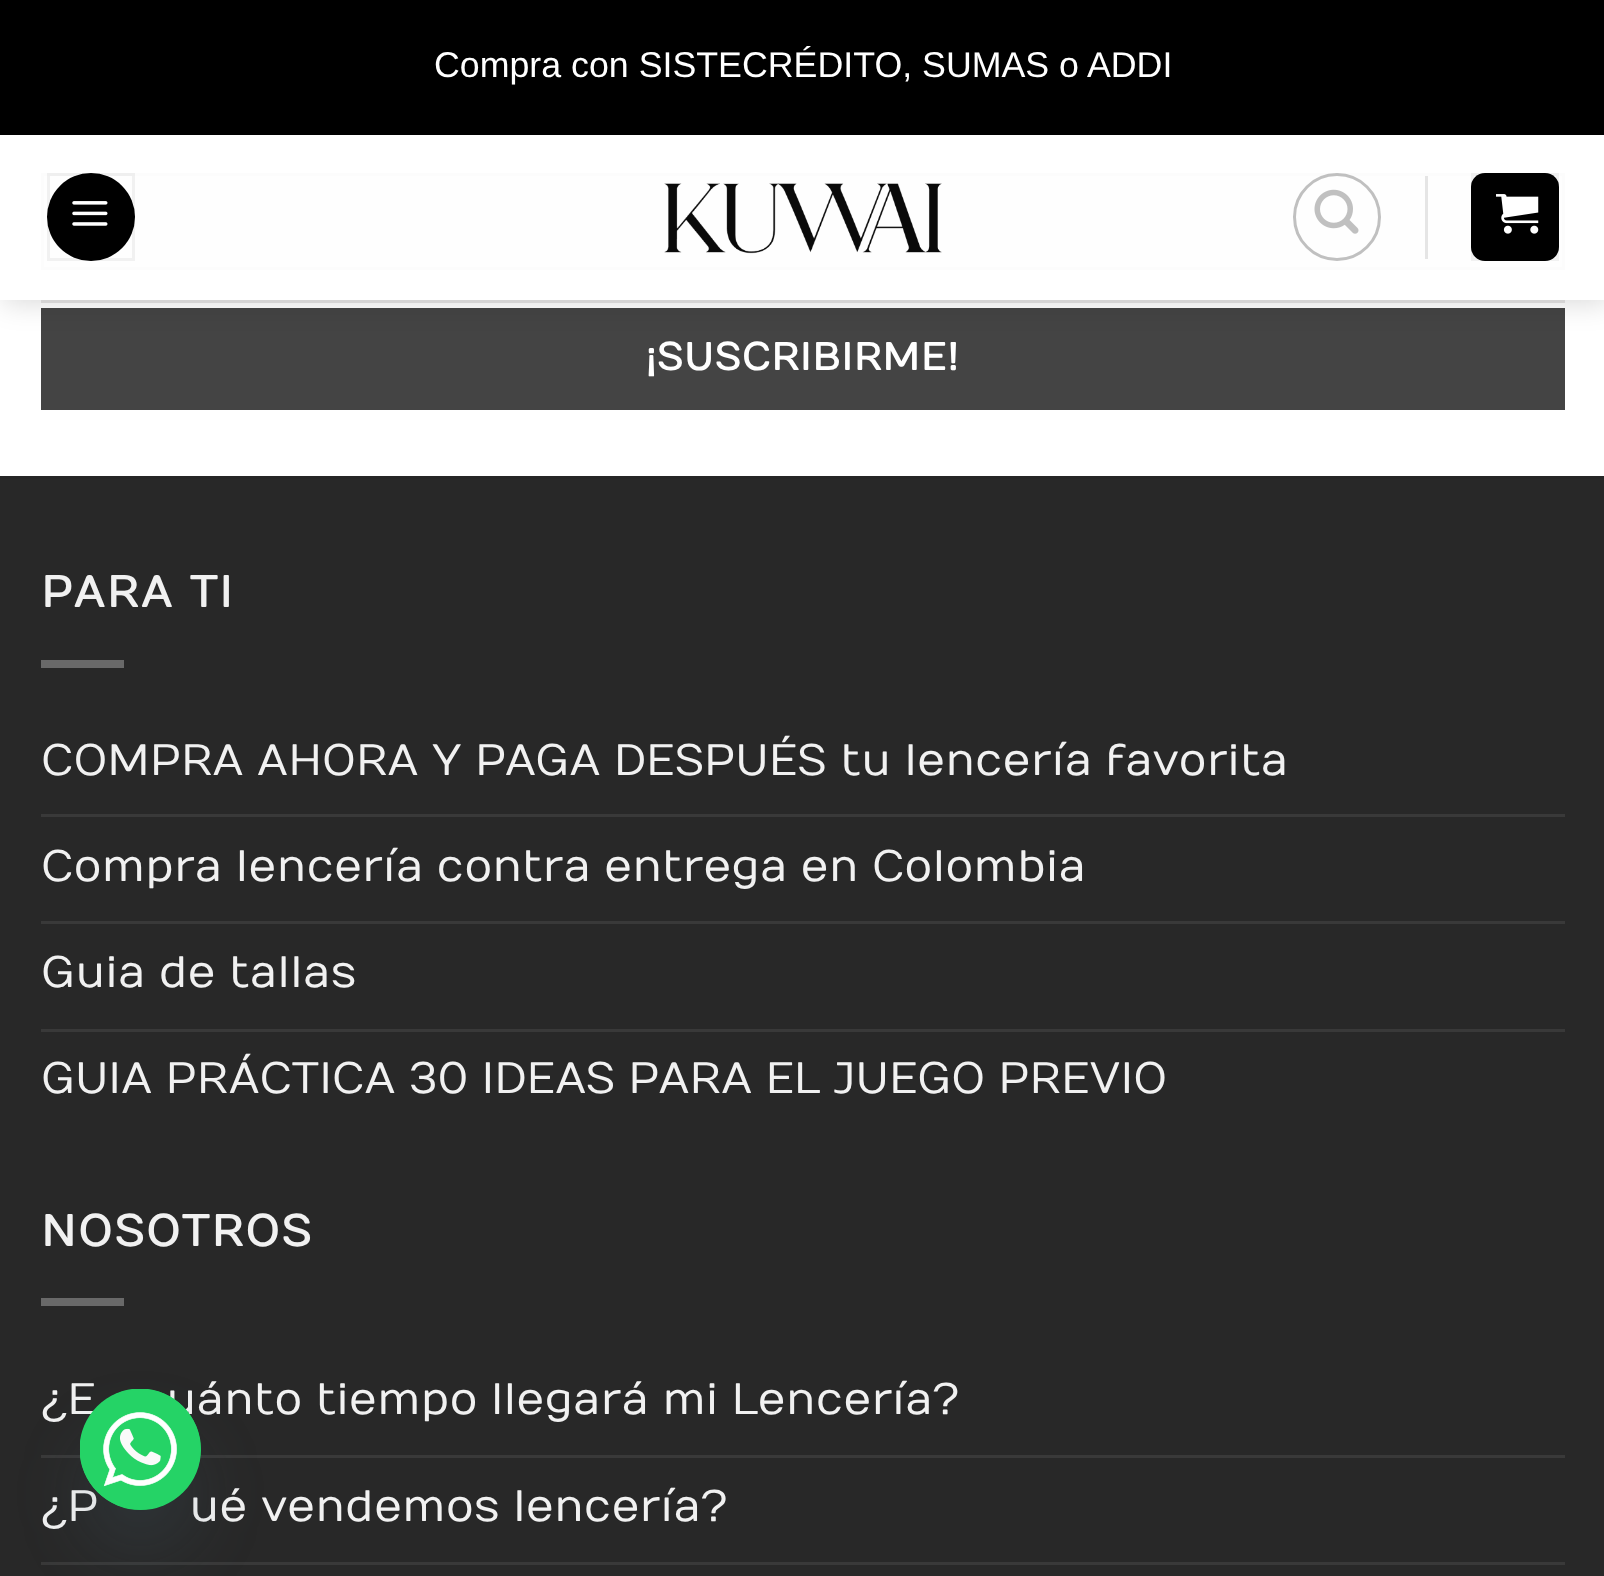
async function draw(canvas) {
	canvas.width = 1604;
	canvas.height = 1576;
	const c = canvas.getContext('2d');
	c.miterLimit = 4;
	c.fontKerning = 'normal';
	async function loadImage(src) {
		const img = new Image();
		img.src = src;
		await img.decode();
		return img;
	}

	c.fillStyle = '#fff';
	c.fillRect(0, 0, 1604, 1576);
	c.fillStyle = '#f4f4f4';
	c.beginPath();
	c.rect(42.5, 174.5, 1521, 94);
	c.fill();
	c.strokeStyle = '#ddd';
	c.lineWidth = 3;
	c.stroke();
	c.fillStyle = '#444';
	c.fillRect(41, 308, 1524, 102);
	c.save();
	c.beginPath();
	c.moveTo(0, 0);
	c.lineTo(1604, 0);
	c.lineTo(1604, 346);
	c.lineTo(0, 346);
	c.closePath();
	c.moveTo(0, 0);
	c.lineTo(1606, 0);
	c.lineTo(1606, 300);
	c.lineTo(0, 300);
	c.closePath();
	c.clip('evenodd');
	c.fillStyle = '#00000026';
	c.filter = 'blur(14px)';
	c.beginPath();
	c.rect(3, 3, 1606, 300);
	c.fill();
	c.filter = 'none';
	c.restore();
	c.fillStyle = '#000';
	c.fillRect(0, 0, 1604, 135);
	c.font = '35.75px Liberation Sans';
	c.fillStyle = '#fff';
	c.fillText('Compra con SISTECRÉDITO, SUMAS o ADDI', 434, 77);
	c.fillStyle = '#ffffffe6';
	c.fillRect(3, 173, 1601, 127);
	c.fillStyle = '#000';
	c.beginPath();
	c.arc(91, 217, 44, 0, 2 * Math.PI);
	c.fill();
	c.strokeStyle = '#0000000d';
	c.strokeRect(48.5, 174.5, 85, 85);
	c.drawImage(await loadImage('img1.png'), 72, 201, 36, 25);
	c.drawImage(await loadImage('img2.png'), 664, 183, 278, 71);
	c.beginPath();
	c.arc(1337, 217, 42.5, 0, 2 * Math.PI);
	c.strokeStyle = '#c0c0c0';
	c.stroke();
	c.drawImage(await loadImage('img3.png'), 1314, 189, 45, 45);
	c.fillStyle = '#e5e5e5';
	c.fillRect(1425, 176, 3, 83);
	c.fillStyle = '#000';
	c.beginPath();
	c.roundRect(1471, 173, 88, 88, 14);
	c.fill();
	c.strokeStyle = '#0000000d';
	c.strokeRect(1472.5, 174.5, 85, 85);
	c.drawImage(await loadImage('img4.png'), 1496, 194, 43, 40);
	c.fillStyle = '#d4d3d3';
	c.fillRect(41, 300, 1524, 3);
	c.letterSpacing = '1.2px';
	c.font = 'bold 38.5px Numans';
	c.fillStyle = '#fff';
	c.fillText('¡SUSCRIBIRME!', 646, 370);
	c.fillStyle = '#282828';
	c.fillRect(0, 479, 1604, 1097);
	c.fillStyle = '#262626';
	c.fillRect(0, 476, 1604, 3);
	c.letterSpacing = '2.25px';
	c.font = 'bold 44px Numans';
	c.fillStyle = '#f1f1f1';
	c.fillText('PARA TI', 41, 607);
	c.fillStyle = '#696969';
	c.fillRect(41, 660, 83, 8);
	c.letterSpacing = '0px';
	c.font = '44px Numans';
	c.fillStyle = '#f1f1f1';
	c.fillText('COMPRA AHORA Y PAGA DESPUÉS tu lencería favorita', 41, 775);
	c.fillStyle = '#393939';
	c.fillRect(41, 814, 1524, 3);
	c.fillStyle = '#f1f1f1';
	c.fillText('Compra lencería contra entrega en Colombia', 41, 881);
	c.fillStyle = '#393939';
	c.fillRect(41, 921, 1524, 3);
	c.fillStyle = '#f1f1f1';
	c.fillText('Guia de tallas', 41, 987);
	c.fillStyle = '#393939';
	c.fillRect(41, 1029, 1524, 3);
	c.fillStyle = '#f1f1f1';
	c.fillText('GUIA PRÁCTICA 30 IDEAS PARA EL JUEGO PREVIO', 41, 1093);
	c.letterSpacing = '2.25px';
	c.font = 'bold 44px Numans';
	c.fillText('NOSOTROS', 41, 1246);
	c.fillStyle = '#696969';
	c.fillRect(41, 1298, 83, 8);
	c.letterSpacing = '0px';
	c.font = '44px Numans';
	c.fillStyle = '#f1f1f1';
	c.fillText('¿E', 41, 1414);
	c.fillText('uánto tiempo llegará mi Lencería?', 166, 1414);
	c.fillStyle = '#393939';
	c.fillRect(41, 1455, 1524, 3);
	c.fillStyle = '#f1f1f1';
	c.fillText('¿P', 41, 1521);
	c.fillText('ué vendemos lencería?', 189, 1521);
	c.fillStyle = '#393939';
	c.fillRect(41, 1562, 1524, 3);
	c.fillStyle = '#49687e29';
	c.filter = 'blur(33px)';
	c.beginPath();
	c.roundRect(80, 1433, 121, 121, 60.5);
	c.fill();
	c.filter = 'none';
	c.fillStyle = '#25d366';
	c.beginPath();
	c.arc(140.5, 1449.5, 60.5, 0, 2 * Math.PI);
	c.fill();
	c.drawImage(await loadImage('img5.png'), 80, 1389, 121, 121);
}

draw(document.querySelector('canvas'));
